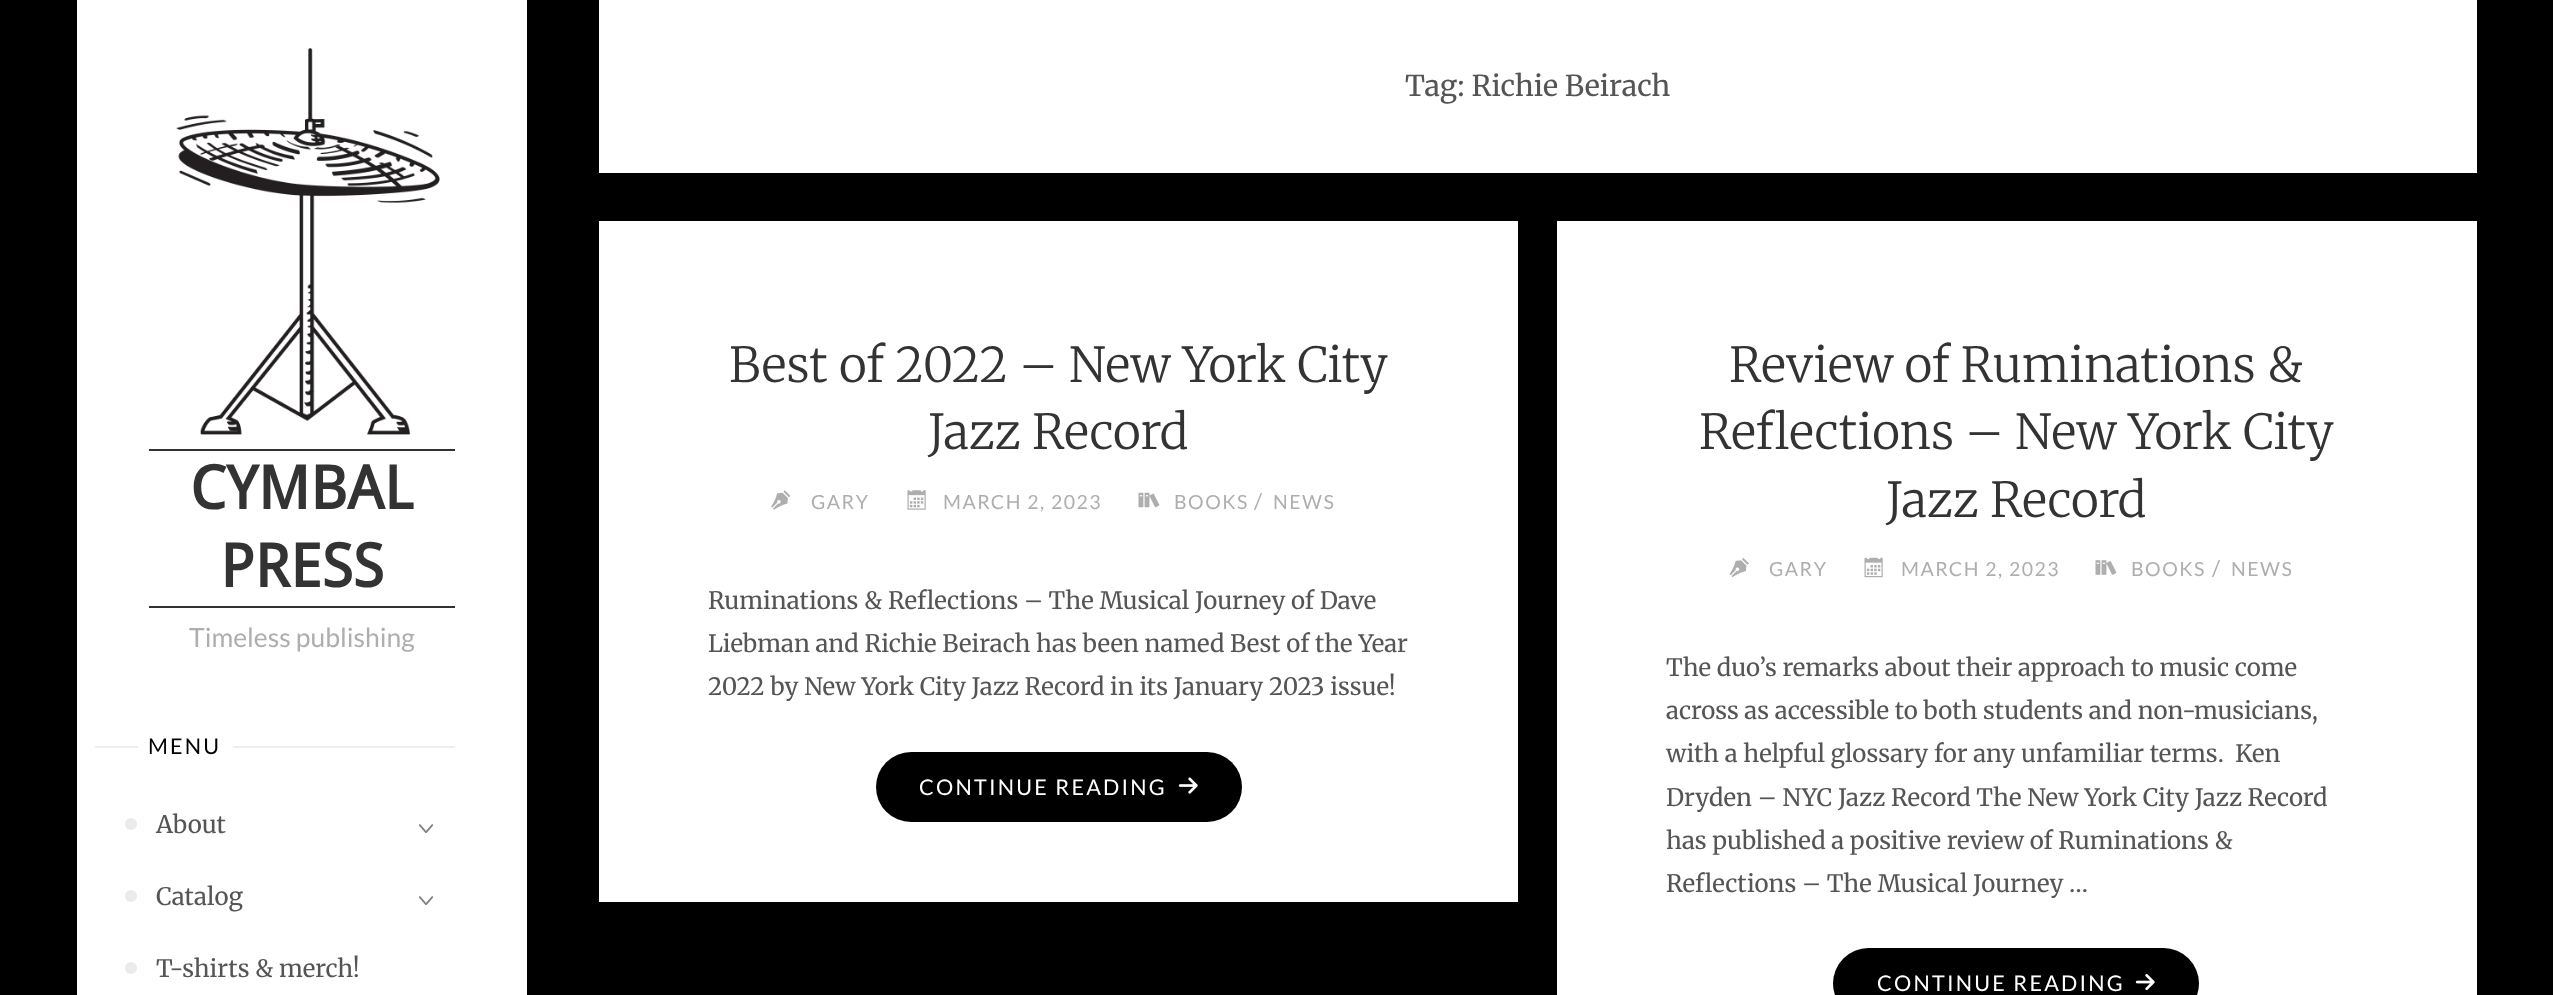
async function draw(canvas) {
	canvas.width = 2553;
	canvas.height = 995;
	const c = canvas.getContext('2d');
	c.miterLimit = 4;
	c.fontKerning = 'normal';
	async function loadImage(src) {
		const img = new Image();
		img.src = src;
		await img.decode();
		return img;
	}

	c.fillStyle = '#000';
	c.fillRect(0, 0, 2553, 995);
	c.fillStyle = '#fff';
	c.fillRect(77, 0, 450, 995);
	c.drawImage(await loadImage('img1.png'), 176, 48, 264, 387);
	c.fillStyle = '#333';
	c.fillRect(149, 449, 306, 2);
	c.fillRect(149, 606, 306, 2);
	c.font = 'bold 60px Droid Sans';
	c.fillText('CYMBAL', 190, 509);
	c.fillText('PRESS', 220, 587);
	c.font = '26.5px Lato';
	c.fillStyle = '#aeaeae';
	c.fillText('Timeless publishing', 189, 647);
	c.fillStyle = '#eee';
	c.fillRect(95, 746, 360, 2);
	c.fillStyle = '#fff';
	c.fillRect(138, 746, 95, 2);
	c.letterSpacing = '2.2px';
	c.font = '21.6px Lato';
	c.fillStyle = '#000';
	c.fillText('MENU', 148, 754);
	c.fillStyle = '#ebebeb';
	c.beginPath();
	c.arc(131, 824, 6, 0, 2 * Math.PI);
	c.fill();
	c.letterSpacing = '0px';
	c.font = '24px Merriweather';
	c.fillStyle = '#555';
	c.fillText('About', 156, 833);
	c.drawImage(await loadImage('img2.png'), 418, 824, 16, 10);
	c.fillStyle = '#ebebeb';
	c.beginPath();
	c.arc(131, 896, 6, 0, 2 * Math.PI);
	c.fill();
	c.fillStyle = '#555';
	c.fillText('Catalog', 156, 905);
	c.drawImage(await loadImage('img2.png'), 418, 896, 16, 10);
	c.fillStyle = '#ebebeb';
	c.beginPath();
	c.arc(131, 968, 6, 0, 2 * Math.PI);
	c.fill();
	c.fillStyle = '#555';
	c.fillText('T-shirts & merch!', 156, 977);
	c.fillStyle = '#fff';
	c.fillRect(599, 0, 1878, 173);
	c.font = '28.75px Merriweather';
	c.fillStyle = '#555';
	c.fillText('Tag: Richie Beirach', 1405, 96);
	c.fillStyle = '#fff';
	c.fillRect(599, 221, 919, 681);
	c.font = '300 48px Merriweather';
	c.fillStyle = '#333';
	c.fillText('Best of 2022 – New York City', 729, 382);
	c.fillText('Jazz Record', 928, 449);
	c.drawImage(await loadImage('img3.png'), 771, 490, 20, 20);
	c.letterSpacing = '1.5px';
	c.font = '19.5px Lato';
	c.fillStyle = '#aeaeae';
	c.fillText('GARY', 811, 509);
	c.drawImage(await loadImage('img4.png'), 907, 490, 19, 20);
	c.fillText('MARCH 2, 2023', 943, 509);
	c.drawImage(await loadImage('img5.png'), 1138, 492, 22, 16);
	c.fillText('BOOKS', 1174, 509);
	c.font = '21.6px Lato';
	c.fillText('/', 1254, 509);
	c.font = '19.5px Lato';
	c.fillText('NEWS', 1273, 509);
	c.letterSpacing = '0px';
	c.font = '24px Merriweather';
	c.fillStyle = '#555';
	for (const [text, x, y] of [
		['Ruminations & Reflections – The Musical Journey of Dave', 708, 609],
		['Liebman and Richie Beirach has been named Best of the Year', 708, 652],
		['2022 by New York City Jazz Record in its January 2023 issue!', 708, 695],
	]) {
		c.fillText(text, x, y);
	}
	c.fillStyle = '#000';
	c.beginPath();
	c.roundRect(876, 752, 366, 70, 35);
	c.fill();
	c.letterSpacing = '2.2px';
	c.font = '21.6px Lato';
	c.fillStyle = '#fff';
	c.fillText('CONTINUE READING', 919, 795);
	c.drawImage(await loadImage('img6.png'), 1178, 777, 20, 17);
	c.fillRect(1557, 221, 920, 774);
	c.letterSpacing = '0px';
	c.font = '300 48px Merriweather';
	c.fillStyle = '#333';
	for (const [text, x, y] of [
		['Review of Ruminations &', 1729, 382],
		['Reflections – New York City', 1699, 449],
		['Jazz Record', 1886, 517],
	]) {
		c.fillText(text, x, y);
	}
	c.drawImage(await loadImage('img7.png'), 1729, 557, 20, 21);
	c.letterSpacing = '1.5px';
	c.font = '19.5px Lato';
	c.fillStyle = '#aeaeae';
	c.fillText('GARY', 1769, 576);
	c.drawImage(await loadImage('img8.png'), 1864, 557, 19, 21);
	c.fillText('MARCH 2, 2023', 1901, 576);
	c.drawImage(await loadImage('img9.png'), 2095, 560, 22, 15);
	c.fillText('BOOKS', 2131, 576);
	c.font = '21.6px Lato';
	c.fillText('/', 2212, 576);
	c.font = '19.5px Lato';
	c.fillText('NEWS', 2231, 576);
	c.letterSpacing = '0px';
	c.font = '24px Merriweather';
	c.fillStyle = '#555';
	for (const [text, x, y] of [
		['The duo’s remarks about their approach to music come', 1666, 676],
		['across as accessible to both students and non-musicians,', 1666, 719],
		['with a helpful glossary for any unfamiliar terms.  Ken', 1666, 762],
		['Dryden – NYC Jazz Record The New York City Jazz Record', 1666, 806],
		['has published a positive review of Ruminations &', 1666, 849],
		['Reflections – The Musical Journey …', 1666, 892],
	]) {
		c.fillText(text, x, y);
	}
	c.fillStyle = '#000';
	c.beginPath();
	c.roundRect(1833, 948, 366, 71, 35.5);
	c.fill();
	c.letterSpacing = '2.2px';
	c.font = '21.6px Lato';
	c.fillStyle = '#fff';
	c.fillText('CONTINUE READING', 1877, 991);
	c.drawImage(await loadImage('img10.png'), 2135, 974, 20, 17);
}

draw(document.querySelector('canvas'));
